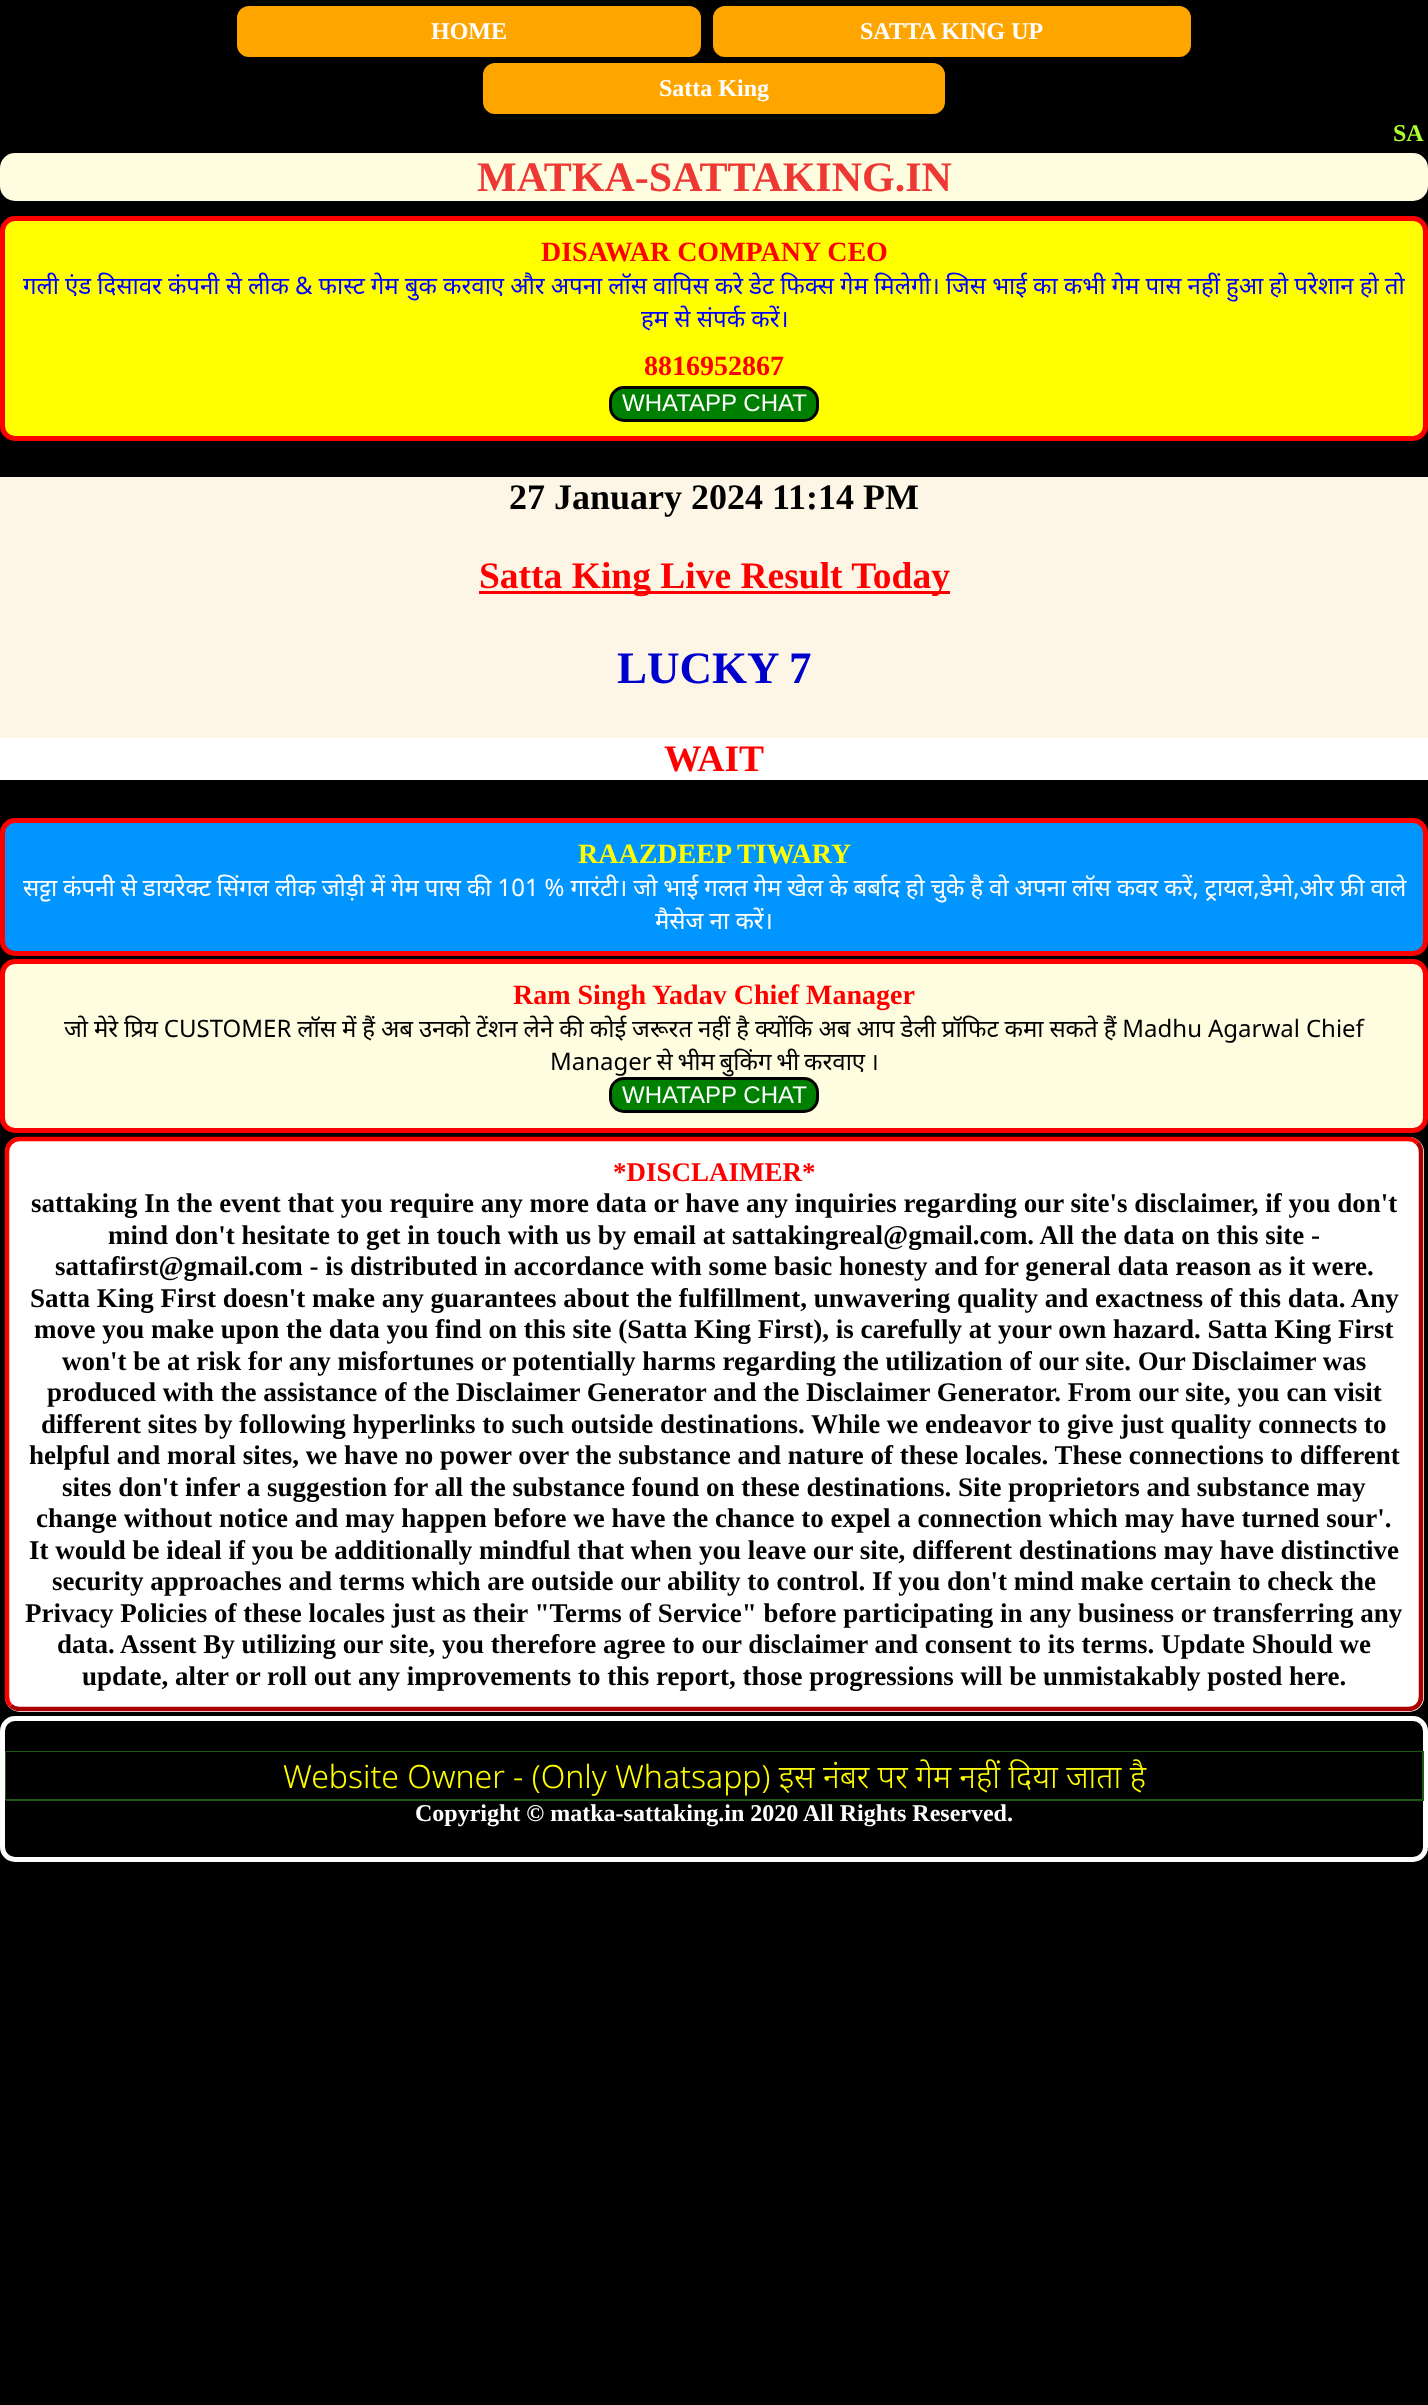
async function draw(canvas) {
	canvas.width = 1428;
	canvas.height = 2405;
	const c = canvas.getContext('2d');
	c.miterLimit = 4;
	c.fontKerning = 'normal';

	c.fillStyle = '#000';
	c.fillRect(0, 0, 1428, 2405);
	c.fillStyle = '#ffa500';
	c.beginPath();
	c.roundRect(235.5, 4.5, 467, 54, 13.5);
	c.fill();
	c.strokeStyle = '#000';
	c.lineWidth = 3;
	c.stroke();
	c.font = 'bold 24px Liberation Serif';
	c.fillStyle = '#fff';
	c.fillText('HOME', 431, 39);
	c.fillStyle = '#ffa500';
	c.beginPath();
	c.roundRect(711.5, 4.5, 481, 54, 13.5);
	c.fill();
	c.stroke();
	c.fillStyle = '#fff';
	c.fillText('SATTA KING UP', 860, 39);
	c.fillStyle = '#ffa500';
	c.beginPath();
	c.roundRect(481.5, 61.5, 465, 54, 13.5);
	c.fill();
	c.stroke();
	c.fillStyle = '#fff';
	c.fillText('Satta King', 659, 96);
	c.fillStyle = '#adff2f';
	c.fillText('SA', 1393, 141);
	c.fillStyle = '#fefde0';
	c.beginPath();
	c.roundRect(0, 153, 1428, 48, 15);
	c.fill();
	c.font = 'bold 42px Liberation Serif';
	c.fillStyle = '#ed3833';
	c.fillText('MATKA-SATTAKING.IN', 477, 191);
	c.fillStyle = '#ff0';
	c.beginPath();
	c.roundRect(2.5, 218.5, 1423, 220, 12.5);
	c.fill();
	c.strokeStyle = '#f00';
	c.lineWidth = 5;
	c.stroke();
	c.font = 'bold 28px Liberation Serif';
	c.fillStyle = '#f00';
	c.fillText('DISAWAR COMPANY CEO', 541, 261);
	c.wordSpacing = '-0.15px';
	c.font = '24px Noto Sans';
	c.fillStyle = '#00f';
	c.fillText('गली एंड दिसावर कंपनी से लीक & फास्ट गेम बुक करवाए और अपना लॉस वापिस करे डेट फिक्स गेम मिलेगी। जिस भाई का कभी गेम पास नहीं हुआ हो परेशान हो तो', 23, 294);
	c.wordSpacing = '0px';
	c.fillText('हम से संपर्क करें।', 641, 327);
	c.font = 'bold 28px Liberation Serif';
	c.fillStyle = '#f00';
	c.fillText('8816952867', 644, 375);
	c.fillStyle = '#008000';
	c.beginPath();
	c.roundRect(610.5, 387.5, 207, 33, 13.5);
	c.fill();
	c.strokeStyle = '#000';
	c.lineWidth = 3;
	c.stroke();
	c.font = '24px Liberation Sans';
	c.fillStyle = '#fff';
	c.fillText('WHATAPP CHAT', 622, 411);
	c.fillStyle = '#fdf5e6';
	c.fillRect(0, 477, 1428, 261);
	c.font = 'bold 36px Liberation Serif';
	c.fillStyle = '#000';
	c.fillText('27 January 2024 11:14 PM', 509, 509);
	c.fillStyle = '#f00';
	c.fillRect(479, 591, 471, 3);
	c.font = 'bold 37.5px Liberation Serif';
	c.fillText('Satta King Live Result Today', 479, 588);
	c.font = 'bold 45px Liberation Serif';
	c.fillStyle = '#0000cd';
	c.fillText('LUCKY 7', 617, 683);
	c.fillStyle = '#fff';
	c.fillRect(0, 738, 1428, 42);
	c.font = 'bold 37.5px Liberation Serif';
	c.fillStyle = '#f00';
	c.fillText('WAIT', 664, 771);
	c.fillStyle = '#0095ff';
	c.beginPath();
	c.roundRect(2.5, 820.5, 1423, 133, 12.5);
	c.fill();
	c.strokeStyle = '#f00';
	c.lineWidth = 5;
	c.stroke();
	c.font = 'bold 28px Liberation Serif';
	c.fillStyle = '#ff0';
	c.fillText('RAAZDEEP TIWARY', 578, 863);
	c.wordSpacing = '-0.3px';
	c.font = '24px Noto Sans';
	c.fillStyle = '#fff';
	c.fillText('सट्टा कंपनी से डायरेक्ट सिंगल लीक जोड़ी में गेम पास की 101 % गारंटी। जो भाई गलत गेम खेल के बर्बाद हो चुके है वो अपना लॉस कवर करें, ट्रायल,डेमो,ओर फ्री वाले', 23, 896);
	c.wordSpacing = '0px';
	c.fillText('मैसेज ना करें।', 655, 929);
	c.fillStyle = '#fefde0';
	c.beginPath();
	c.roundRect(2.5, 961.5, 1423, 169, 12.5);
	c.fill();
	c.stroke();
	c.font = 'bold 28px Liberation Serif';
	c.fillStyle = '#f00';
	c.fillText('Ram Singh Yadav Chief Manager', 513, 1004);
	c.wordSpacing = '-0.3px';
	c.font = '24px Noto Sans';
	c.fillStyle = '#000';
	c.fillText('जो मेरे प्रिय CUSTOMER लॉस में हैं अब उनको टेंशन लेने की कोई जरूरत नहीं है क्योंकि अब आप डेली प्रॉफिट कमा सकते हैं Madhu Agarwal Chief', 64, 1037);
	c.wordSpacing = '-1.5px';
	c.fillText('Manager से भीम बुकिंग भी करवाए ।', 550, 1070);
	c.fillStyle = '#008000';
	c.beginPath();
	c.roundRect(610.5, 1078.5, 207, 33, 13.5);
	c.fill();
	c.strokeStyle = '#000';
	c.lineWidth = 3;
	c.stroke();
	c.wordSpacing = '0px';
	c.font = '24px Liberation Sans';
	c.fillStyle = '#fff';
	c.fillText('WHATAPP CHAT', 622, 1103);
	c.beginPath();
	c.roundRect(5, 1137, 1419, 575, 15);
	c.fill();
	c.beginPath();
	c.moveTo(1417.5, 1143);
	c.bezierCurveTo(1420, 1145.5, 1421, 1148.5, 1421, 1152);
	c.lineTo(1421, 1696.5);
	c.bezierCurveTo(1421, 1700, 1420, 1703, 1417.5, 1705.5);
	c.bezierCurveTo(1415, 1708, 1412, 1709, 1408.5, 1709);
	c.lineTo(19.5, 1709);
	c.bezierCurveTo(16, 1709, 13, 1708, 10.5, 1705.5);
	c.strokeStyle = '#a00';
	c.lineWidth = 4.5;
	c.stroke();
	c.beginPath();
	c.moveTo(10.5, 1705.5);
	c.bezierCurveTo(8, 1703, 7, 1700, 7, 1696.5);
	c.lineTo(7, 1152);
	c.bezierCurveTo(7, 1148.5, 8, 1145.5, 10.5, 1143);
	c.bezierCurveTo(13, 1140.5, 16, 1139, 19.5, 1139);
	c.lineTo(1408.5, 1139);
	c.bezierCurveTo(1412, 1139, 1415, 1140.5, 1417.5, 1143);
	c.strokeStyle = '#f00';
	c.stroke();
	c.font = 'bold 27px Liberation Serif';
	c.fillStyle = '#f00';
	c.fillText('*DISCLAIMER*', 613, 1181);
	c.fillStyle = '#000';
	for (const [text, x, y] of [
		['sattaking In the event that you require any more data or have any inquiries regarding our site\'s disclaimer, if you don\'t', 31, 1212],
		['mind don\'t hesitate to get in touch with us by email at sattakingreal@gmail.com. All the data on this site -', 108, 1244],
		['sattafirst@gmail.com - is distributed in accordance with some basic honesty and for general data reason as it were.', 55, 1275],
		['Satta King First doesn\'t make any guarantees about the fulfillment, unwavering quality and exactness of this data. Any', 30, 1307],
		['move you make upon the data you find on this site (Satta King First), is carefully at your own hazard. Satta King First', 34, 1338],
		['won\'t be at risk for any misfortunes or potentially harms regarding the utilization of our site. Our Disclaimer was', 62, 1370],
		['produced with the assistance of the Disclaimer Generator and the Disclaimer Generator. From our site, you can visit', 47, 1401],
		['different sites by following hyperlinks to such outside destinations. While we endeavor to give just quality connects to', 41, 1433],
		['helpful and moral sites, we have no power over the substance and nature of these locales. These connections to different', 29, 1464],
		['sites don\'t infer a suggestion for all the substance found on these destinations. Site proprietors and substance may', 62, 1496],
		['change without notice and may happen before we have the chance to expel a connection which may have turned sour\'.', 36, 1527],
		['It would be ideal if you be additionally mindful that when you leave our site, different destinations may have distinctive', 29, 1559],
		['security approaches and terms which are outside our ability to control. If you don\'t mind make certain to check the', 52, 1590],
		['Privacy Policies of these locales just as their "Terms of Service" before participating in any business or transferring any', 25, 1622],
		['data. Assent By utilizing our site, you therefore agree to our disclaimer and consent to its terms. Update Should we', 57, 1653],
		['update, alter or roll out any improvements to this report, those progressions will be unmistakably posted here.', 82, 1685],
	]) {
		c.fillText(text, x, y);
	}
	c.beginPath();
	c.roundRect(2.5, 1718.5, 1423, 141, 12.5);
	c.strokeStyle = '#fff';
	c.lineWidth = 5;
	c.stroke();
	for (const [x, y, w, h, color] of [
		[5, 1751, 1419, 1, '#1f5718'],
		[5, 1751, 2, 49, '#1f5718'],
		[6, 1752, 1, 47, '#000'],
		[1422, 1752, 2, 48, '#1f5718'],
		[6, 1799, 1418, 2, '#1f5718'],
	]) {
		c.fillStyle = color;
		c.fillRect(x, y, w, h);
	}
	c.font = '300 32px Noto Sans';
	c.fillStyle = '#ff0';
	c.fillText('Website Owner - (Only Whatsapp) इस नंबर पर गेम नहीं दिया जाता है', 283, 1788);
	c.font = 'bold 24px Liberation Serif';
	c.fillStyle = '#fff';
	c.fillText('Copyright © matka-sattaking.in 2020 All Rights Reserved.', 415, 1821);
}

draw(document.querySelector('canvas'));
